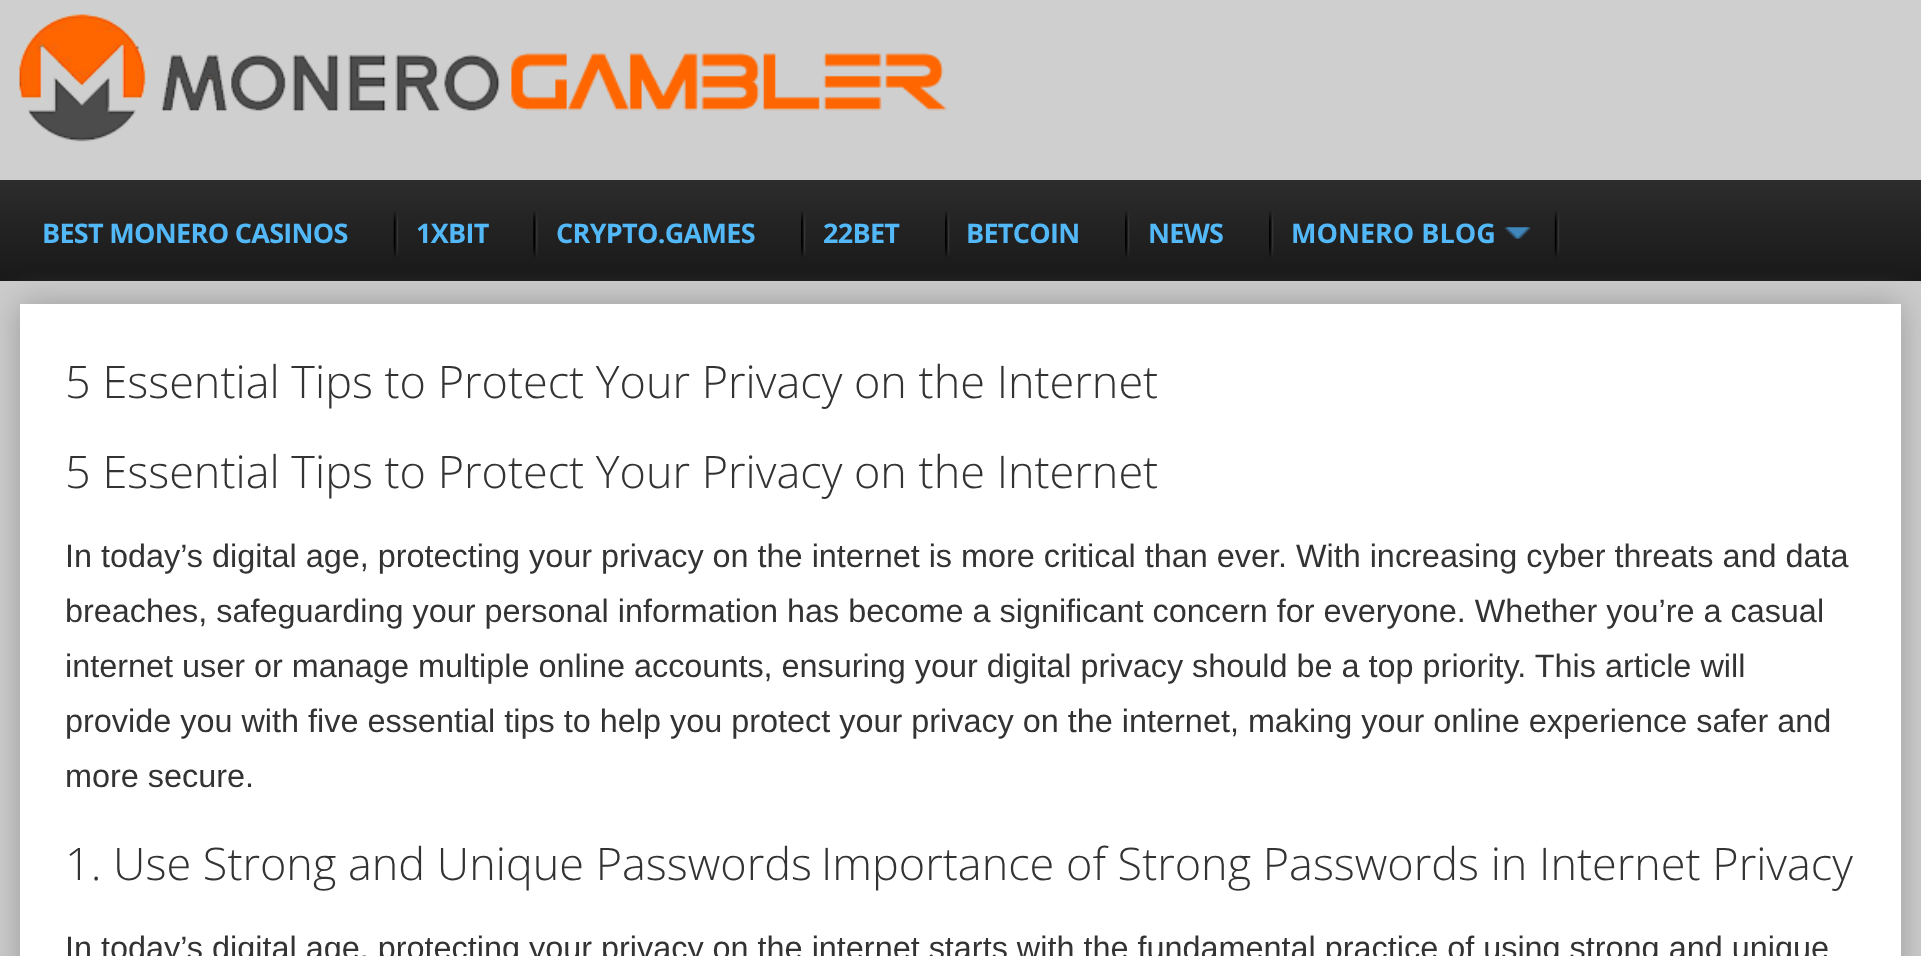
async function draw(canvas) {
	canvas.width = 1921;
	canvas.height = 956;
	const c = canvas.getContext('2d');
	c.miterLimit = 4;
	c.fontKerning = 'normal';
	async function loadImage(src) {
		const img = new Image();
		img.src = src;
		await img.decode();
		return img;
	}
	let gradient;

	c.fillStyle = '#ccc';
	c.fillRect(0, 0, 1921, 956);
	c.fillStyle = '#cfcfcf';
	c.fillRect(0, 0, 1921, 180);
	c.drawImage(await loadImage('img1.png'), 19, 14, 928, 128);
	gradient = c.createLinearGradient(961, 180, 961, 281);
	gradient.addColorStop(0, '#2d2d2d');
	gradient.addColorStop(0.45, '#232323');
	gradient.addColorStop(1, '#191919');
	c.fillStyle = gradient;
	c.fillRect(0, 180, 1921, 101);
	c.letterSpacing = '-0.7px';
	c.font = 'bold 27px Open Sans';
	c.fillStyle = '#52b8f7';
	c.fillText('BEST MONERO CASINOS', 42, 243);
	c.drawImage(await loadImage('img2.png'), 393, 211, 6, 46);
	c.fillText('1XBIT', 416, 243);
	c.drawImage(await loadImage('img3.png'), 533, 211, 5, 46);
	c.fillText('CRYPTO.GAMES', 556, 243);
	c.drawImage(await loadImage('img4.png'), 801, 211, 5, 46);
	c.fillText('22BET', 823, 243);
	c.drawImage(await loadImage('img4.png'), 945, 211, 5, 46);
	c.fillText('BETCOIN', 966, 243);
	c.drawImage(await loadImage('img4.png'), 1125, 211, 5, 46);
	c.fillText('NEWS', 1148, 243);
	c.drawImage(await loadImage('img4.png'), 1269, 211, 5, 46);
	c.letterSpacing = '0px';
	c.fillText('MONERO BLOG', 1291, 243);
	c.drawImage(await loadImage('img5.png'), 1505, 227, 25, 12);
	c.drawImage(await loadImage('img2.png'), 1554, 211, 6, 46);
	c.fillStyle = '#999';
	c.filter = 'blur(16px)';
	c.beginPath();
	c.rect(20, 304, 1881, 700);
	c.fill();
	c.filter = 'none';
	c.fillStyle = '#fff';
	c.fillRect(20, 304, 1881, 652);
	c.font = '300 45px Open Sans';
	c.fillStyle = '#333';
	c.fillText('5 Essential Tips to Protect Your Privacy on the Internet', 65, 398);
	c.fillText('5 Essential Tips to Protect Your Privacy on the Internet', 65, 488);
	c.font = '32.4px Liberation Sans';
	for (const [text, x, y] of [
		['In today’s digital age, protecting your privacy on the internet is more critical than ever. With increasing cyber threats and data', 65, 567],
		['breaches, safeguarding your personal information has become a significant concern for everyone. Whether you’re a casual', 65, 622],
		['internet user or manage multiple online accounts, ensuring your digital privacy should be a top priority. This article will', 65, 677],
		['provide you with five essential tips to help you protect your privacy on the internet, making your online experience safer and', 65, 732],
		['more secure.', 65, 787],
	]) {
		c.fillText(text, x, y);
	}
	c.font = '300 45px Open Sans';
	c.fillText('1. Use Strong and Unique Passwords', 65, 880);
	c.fillText('Importance of Strong Passwords in Internet Privacy', 821, 880);
	c.font = '32.4px Liberation Sans';
	c.fillText('In today’s digital age, protecting your privacy on the internet starts with the fundamental practice of using strong and unique', 65, 959);
}

draw(document.querySelector('canvas'));
